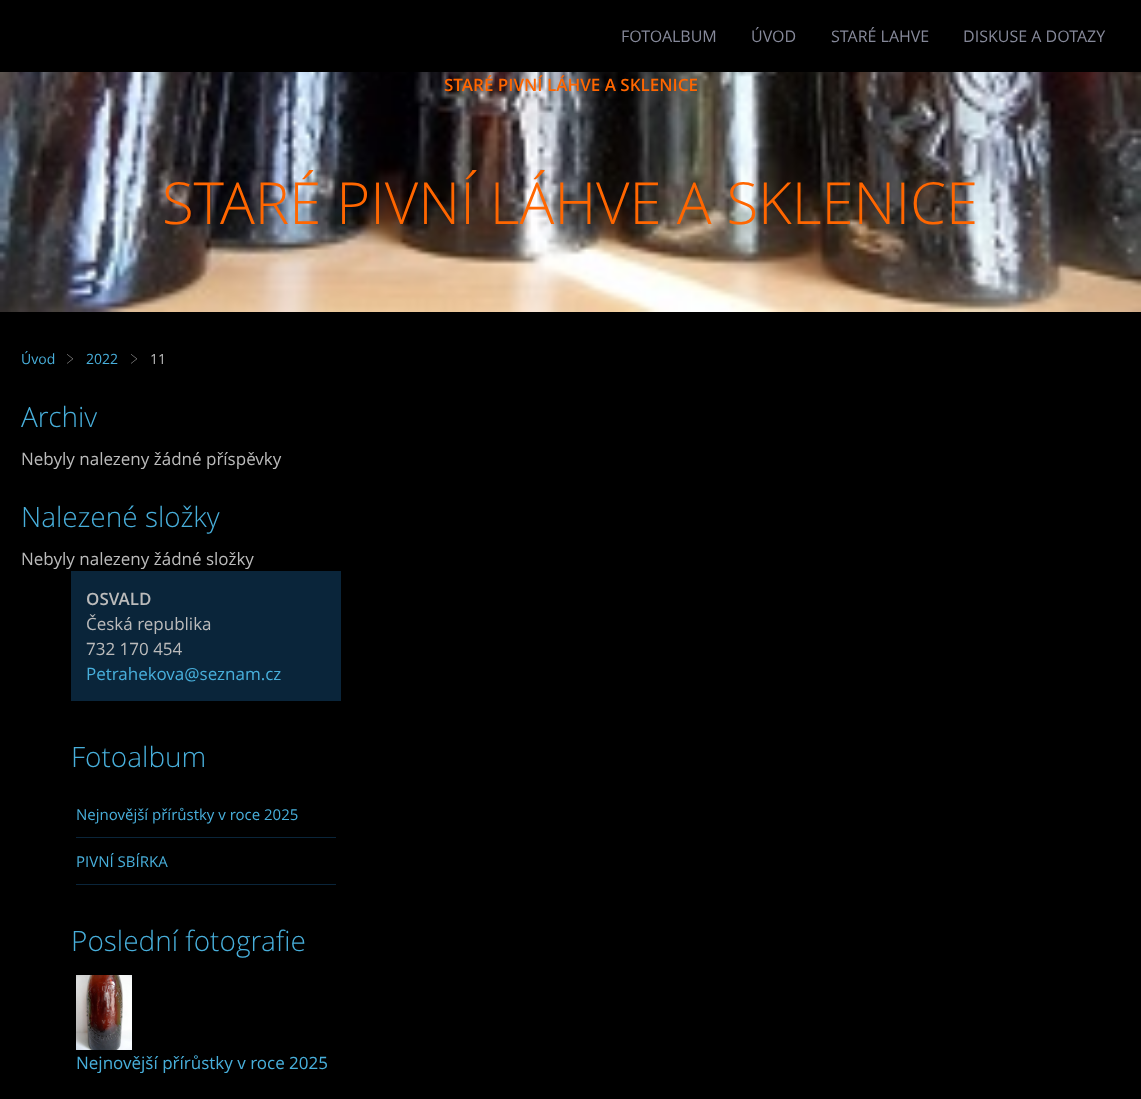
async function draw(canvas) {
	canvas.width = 1141;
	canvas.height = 1099;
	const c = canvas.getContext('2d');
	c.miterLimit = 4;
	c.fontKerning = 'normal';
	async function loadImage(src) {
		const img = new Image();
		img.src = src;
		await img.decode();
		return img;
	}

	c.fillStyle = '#000';
	c.fillRect(0, 0, 1141, 1099);
	c.font = '16px Open Sans';
	c.fillStyle = '#86899a';
	for (const [text, x, y] of [
		['FOTOALBUM', 621, 42],
		['ÚVOD', 751, 42],
		['STARÉ LAHVE', 831, 42],
		['DISKUSE A DOTAZY', 963, 42],
	]) {
		c.fillText(text, x, y);
	}
	c.drawImage(await loadImage('img1.png'), 0, 72, 1141, 240);
	c.font = '600 17px Open Sans';
	c.fillStyle = '#f60';
	c.fillText('STARÉ PIVNÍ LÁHVE A SKLENICE', 444, 91);
	c.font = '300 58px Open Sans';
	c.fillText('STARÉ PIVNÍ LÁHVE A SKLENICE', 162, 224);
	c.font = '14px Open Sans';
	c.fillStyle = '#48afdb';
	c.fillText('Úvod', 21, 364);
	c.drawImage(await loadImage('img2.png'), 67, 354, 6, 10);
	c.fillText('2022', 86, 364);
	c.drawImage(await loadImage('img2.png'), 131, 354, 6, 10);
	c.fillStyle = '#bbb';
	c.fillText('11', 150, 364);
	c.font = '300 28px Open Sans';
	c.fillStyle = '#48afdb';
	c.fillText('Archiv', 21, 427);
	c.font = '17px Open Sans';
	c.fillStyle = '#bbb';
	c.fillText('Nebyly nalezeny žádné příspěvky', 21, 465);
	c.font = '300 28px Open Sans';
	c.fillStyle = '#48afdb';
	c.fillText('Nalezené složky', 21, 527);
	c.font = '17px Open Sans';
	c.fillStyle = '#bbb';
	c.fillText('Nebyly nalezeny žádné složky', 21, 565);
	c.fillStyle = '#0a253a';
	c.fillRect(71, 571, 270, 130);
	c.font = '600 17px Open Sans';
	c.fillStyle = '#bbb';
	c.fillText('OSVALD', 86, 605);
	c.font = '17px Open Sans';
	c.fillText('Česká republika', 86, 630);
	c.fillText('732 170 454', 86, 655);
	c.fillStyle = '#48afdb';
	c.fillText('Petrahekova@seznam.cz', 86, 680);
	c.font = '300 28px Open Sans';
	c.fillText('Fotoalbum', 71, 767);
	c.fillStyle = '#0a253a';
	c.fillRect(76, 837, 260, 1);
	c.font = '15px Open Sans';
	c.fillStyle = '#48afdb';
	c.fillText('Nejnovější přírůstky v roce 2025', 76, 820);
	c.fillStyle = '#0a253a';
	c.fillRect(76, 884, 260, 1);
	c.fillStyle = '#48afdb';
	c.fillText('PIVNÍ SBÍRKA', 76, 867);
	c.font = '300 28px Open Sans';
	c.fillText('Poslední fotografie', 71, 951);
	c.drawImage(await loadImage('img3.png'), 76, 975, 56, 75);
	c.font = '17px Open Sans';
	c.fillText('Nejnovější přírůstky v roce 2025', 76, 1069);
}

draw(document.querySelector('canvas'));
